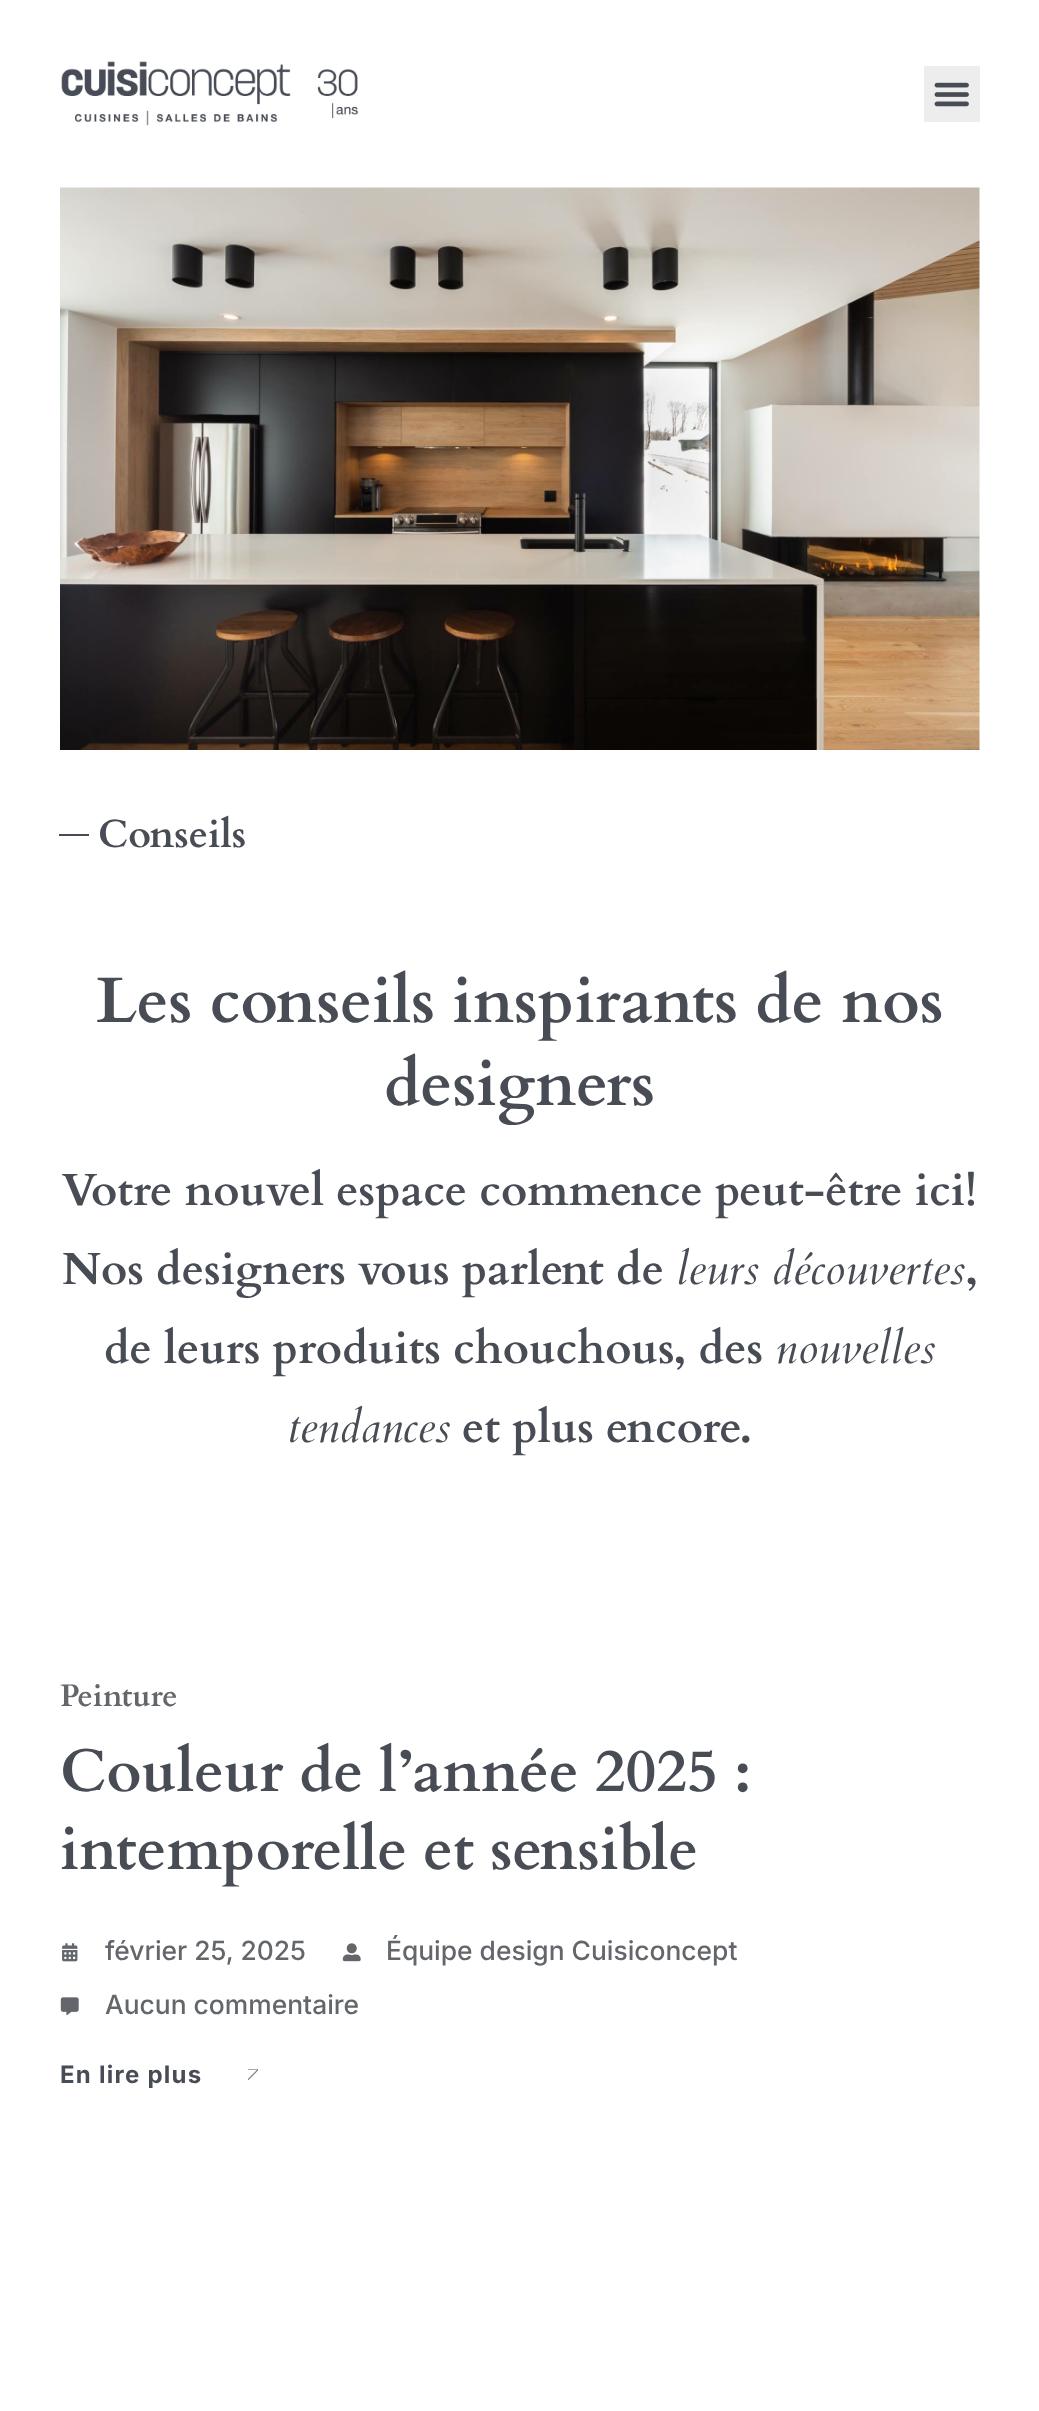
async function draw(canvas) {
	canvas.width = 1039;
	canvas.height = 2411;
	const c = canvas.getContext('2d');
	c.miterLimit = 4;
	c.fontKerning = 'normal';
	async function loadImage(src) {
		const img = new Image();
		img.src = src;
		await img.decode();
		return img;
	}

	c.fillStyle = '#fff';
	c.fillRect(0, 0, 1039, 2411);
	c.drawImage(await loadImage('img1.png'), 61, 61, 297, 65);
	c.fillStyle = '#ededed';
	c.fillRect(924, 66, 56, 56);
	c.drawImage(await loadImage('img2.png'), 934, 82, 35, 25);
	c.drawImage(await loadImage('img3.png'), 60, 187, 920, 563);
	c.fillStyle = '#484c55';
	c.fillRect(59, 834, 30, 2);
	c.font = 'bold 39px Cardo';
	c.fillText('Conseils', 98, 847);
	c.font = 'bold 64.25px Cardo';
	c.fillText('Les conseils inspirants de nos', 96, 1022);
	c.fillText('designers', 384, 1105);
	c.font = 'bold 45px Cardo';
	c.fillText('Votre nouvel espace commence peut-être ici!', 62, 1205);
	c.fillText('Nos designers vous parlent de', 62, 1284);
	c.font = 'italic 45px Cardo';
	c.fillText('leurs découvertes', 676, 1284);
	c.font = 'bold 45px Cardo';
	c.fillText(',', 965, 1284);
	c.fillText('de leurs produits chouchous, des', 104, 1363);
	c.font = 'italic 45px Cardo';
	c.fillText('nouvelles', 775, 1363);
	c.fillText('tendances', 287, 1442);
	c.font = 'bold 45px Cardo';
	c.fillText('et plus encore.', 462, 1442);
	c.font = 'bold 31px Cardo';
	c.fillStyle = '#63666a';
	c.fillText('Peinture', 60, 1706);
	c.font = 'bold 60px Cardo';
	c.fillStyle = '#484c55';
	c.fillText('Couleur de l’année 2025 :', 60, 1791);
	c.fillText('intemporelle et sensible', 60, 1869);
	c.drawImage(await loadImage('img4.png'), 62, 1943, 16, 19);
	c.font = '500 26.4px Inter';
	c.fillStyle = '#63666a';
	c.fillText('février 25, 2025', 105, 1960);
	c.drawImage(await loadImage('img5.png'), 342, 1943, 19, 19);
	c.fillText('Équipe design Cuisiconcept', 386, 1960);
	c.drawImage(await loadImage('img6.png'), 60, 1997, 19, 19);
	c.fillText('Aucun commentaire', 105, 2014);
	c.letterSpacing = '1.25px';
	c.font = 'bold 24px Inter';
	c.fillStyle = '#484c55';
	c.fillText('En lire plus', 60, 2083);
	c.drawImage(await loadImage('img7.png'), 248, 2069, 10, 12);
}

draw(document.querySelector('canvas'));
